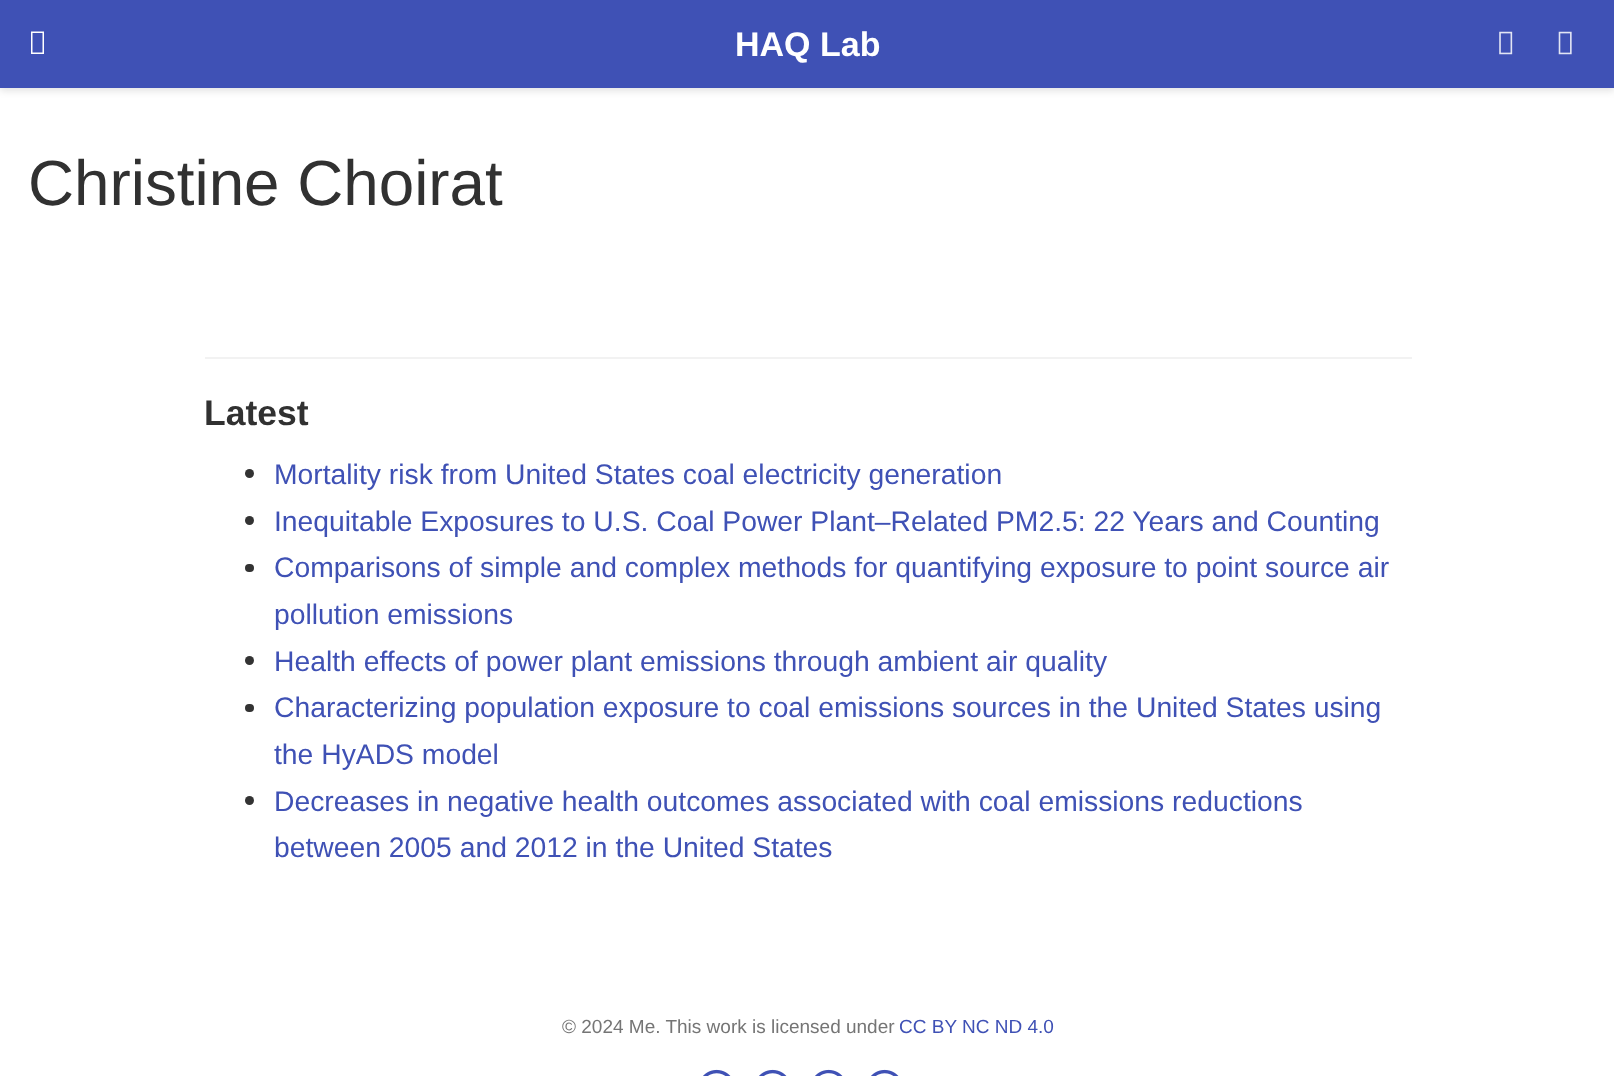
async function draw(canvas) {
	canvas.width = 1614;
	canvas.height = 1076;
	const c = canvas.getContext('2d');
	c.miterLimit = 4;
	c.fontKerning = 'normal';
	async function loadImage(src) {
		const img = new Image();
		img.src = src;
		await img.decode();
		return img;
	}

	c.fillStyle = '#fff';
	c.fillRect(0, 0, 1614, 1076);
	c.fillStyle = '#0000001c';
	c.filter = 'blur(3.5px)';
	c.beginPath();
	c.rect(0, 4, 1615, 87);
	c.fill();
	c.filter = 'none';
	c.fillStyle = '#3f51b5';
	c.fillRect(0, 0, 1614, 88);
	c.fillStyle = '#fff';
	c.beginPath();
	c.moveTo(31, 54);
	c.lineTo(31, 31.5);
	c.lineTo(44, 31.5);
	c.lineTo(44, 54);
	c.closePath();
	c.moveTo(32.5, 52.5);
	c.lineTo(42.5, 52.5);
	c.lineTo(42.5, 33);
	c.lineTo(32.5, 33);
	c.closePath();
	c.fill();
	c.font = 'bold 34px Liberation Sans';
	c.fillText('HAQ Lab', 735, 56);
	c.drawImage(await loadImage('img1.png'), 1499, 31, 14, 24);
	c.drawImage(await loadImage('img2.png'), 1558, 31, 14, 24);
	c.font = '63.75px Liberation Sans';
	c.fillStyle = '#313131';
	c.fillText('Christine Choirat', 28, 205);
	c.fillStyle = '#f2f2f2';
	c.fillRect(205, 357, 1207, 2);
	c.font = 'bold 35.5px Liberation Sans';
	c.fillStyle = '#313131';
	c.fillText('Latest', 204, 425);
	c.fillStyle = '#333';
	c.beginPath();
	c.arc(249.5, 473.5, 4.5, 0, 2 * Math.PI);
	c.fill();
	c.font = '28.3px Liberation Sans';
	c.fillStyle = '#3f51b5';
	c.fillText('Mortality risk from United States coal electricity generation', 274, 484);
	c.fillStyle = '#333';
	c.beginPath();
	c.arc(249.5, 520.5, 4.5, 0, 2 * Math.PI);
	c.fill();
	c.fillStyle = '#3f51b5';
	c.fillText('Inequitable Exposures to U.S. Coal Power Plant–Related PM2.5: 22 Years and Counting', 274, 531);
	c.fillStyle = '#333';
	c.beginPath();
	c.roundRect(245, 564, 9, 8, 4);
	c.fill();
	c.fillStyle = '#3f51b5';
	c.fillText('Comparisons of simple and complex methods for quantifying exposure to point source air', 274, 577);
	c.fillText('pollution emissions', 274, 624);
	c.fillStyle = '#333';
	c.beginPath();
	c.arc(249.5, 660.5, 4.5, 0, 2 * Math.PI);
	c.fill();
	c.fillStyle = '#3f51b5';
	c.fillText('Health effects of power plant emissions through ambient air quality', 274, 671);
	c.fillStyle = '#333';
	c.beginPath();
	c.roundRect(245, 704, 9, 8, 4);
	c.fill();
	c.fillStyle = '#3f51b5';
	c.fillText('Characterizing population exposure to coal emissions sources in the United States using', 274, 717);
	c.fillText('the HyADS model', 274, 764);
	c.fillStyle = '#333';
	c.beginPath();
	c.arc(249.5, 800.5, 4.5, 0, 2 * Math.PI);
	c.fill();
	c.fillStyle = '#3f51b5';
	c.fillText('Decreases in negative health outcomes associated with coal emissions reductions', 274, 811);
	c.fillText('between 2005 and 2012 in the United States', 274, 857);
	c.font = '19px Liberation Sans';
	c.fillStyle = '#757575';
	c.fillText('© 2024 Me. This work is licensed under', 562, 1033);
	c.fillStyle = '#3f51b5';
	c.fillText('CC BY NC ND 4.0', 899, 1033);
	c.drawImage(await loadImage('img3.png'), 703, 1069, 28, 7);
	c.drawImage(await loadImage('img3.png'), 759, 1069, 28, 7);
	c.drawImage(await loadImage('img4.png'), 815, 1069, 28, 7);
	c.drawImage(await loadImage('img3.png'), 871, 1069, 28, 7);
}

draw(document.querySelector('canvas'));
